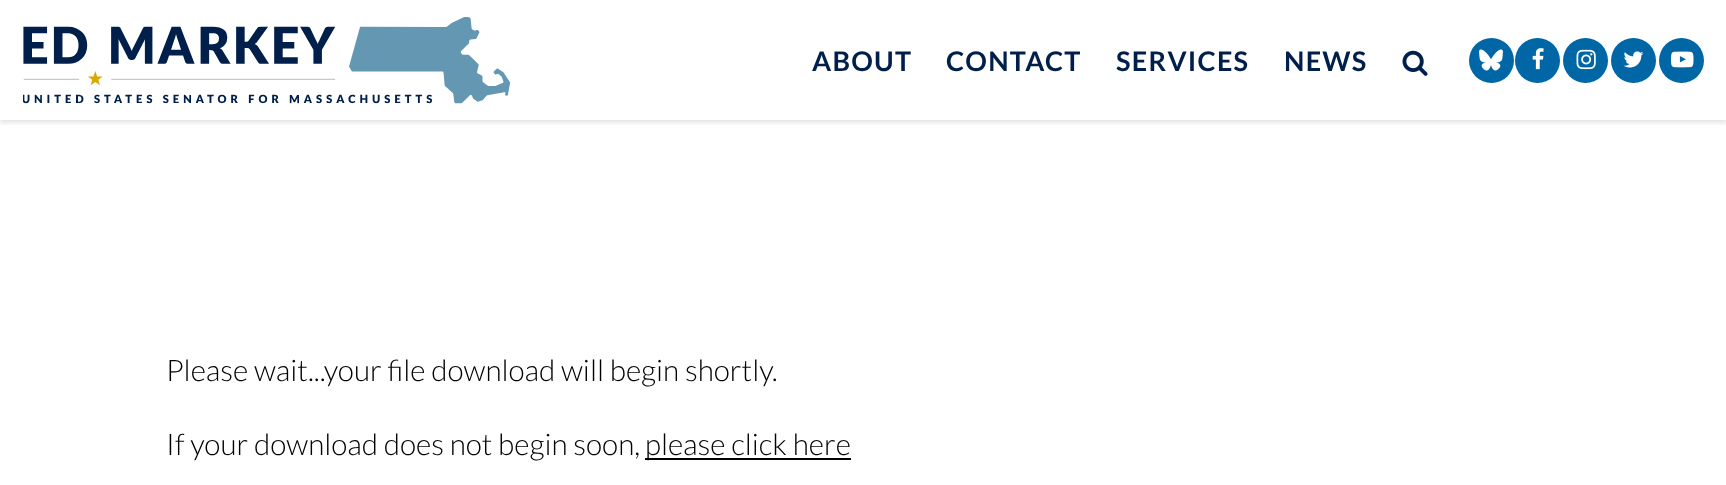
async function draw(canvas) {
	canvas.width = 1726;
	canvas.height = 485;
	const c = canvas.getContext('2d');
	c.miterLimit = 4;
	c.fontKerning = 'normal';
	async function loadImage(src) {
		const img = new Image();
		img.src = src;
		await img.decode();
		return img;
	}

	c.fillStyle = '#fff';
	c.fillRect(0, 0, 1726, 485);
	c.save();
	c.beginPath();
	c.rect(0, 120, 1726, 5);
	c.clip();
	c.fillStyle = '#0000001a';
	c.filter = 'blur(2px)';
	c.beginPath();
	c.rect(0, 3, 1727, 120);
	c.fill();
	c.filter = 'none';
	c.restore();
	c.drawImage(await loadImage('img1.png'), 23, 17, 487, 87);
	c.letterSpacing = '1.25px';
	c.font = 'bold 27px Lato';
	c.fillStyle = '#011f4b';
	for (const [text, x, y] of [
		['ABOUT', 812, 71],
		['CONTACT', 946, 71],
		['SERVICES', 1116, 71],
		['NEWS', 1284, 71],
	]) {
		c.fillText(text, x, y);
	}
	c.drawImage(await loadImage('img2.png'), 1402, 50, 26, 26);
	c.fillStyle = '#0066a5';
	c.beginPath();
	c.arc(1491.5, 60.5, 22.5, 0, 2 * Math.PI);
	c.fill();
	c.drawImage(await loadImage('img3.png'), 1479, 49, 24, 22);
	c.beginPath();
	c.arc(1537.5, 60.5, 22.5, 0, 2 * Math.PI);
	c.fill();
	c.drawImage(await loadImage('img4.png'), 1532, 48, 12, 22);
	c.beginPath();
	c.arc(1585.5, 60.5, 22.5, 0, 2 * Math.PI);
	c.fill();
	c.drawImage(await loadImage('img5.png'), 1576, 49, 20, 21);
	c.beginPath();
	c.arc(1633.5, 60.5, 22.5, 0, 2 * Math.PI);
	c.fill();
	c.drawImage(await loadImage('img6.png'), 1623, 51, 21, 17);
	c.beginPath();
	c.arc(1681.5, 60.5, 22.5, 0, 2 * Math.PI);
	c.fill();
	c.drawImage(await loadImage('img7.png'), 1671, 51, 23, 17);
	c.letterSpacing = '0px';
	c.font = '300 29.7px Lato';
	c.fillStyle = '#000';
	c.fillText('Please wait...your file download will begin shortly.', 166, 381);
	c.fillText('If your download does not begin soon,', 166, 455);
	c.fillRect(645, 458, 206, 2);
	c.fillText('please click here', 645, 455);
}

draw(document.querySelector('canvas'));
